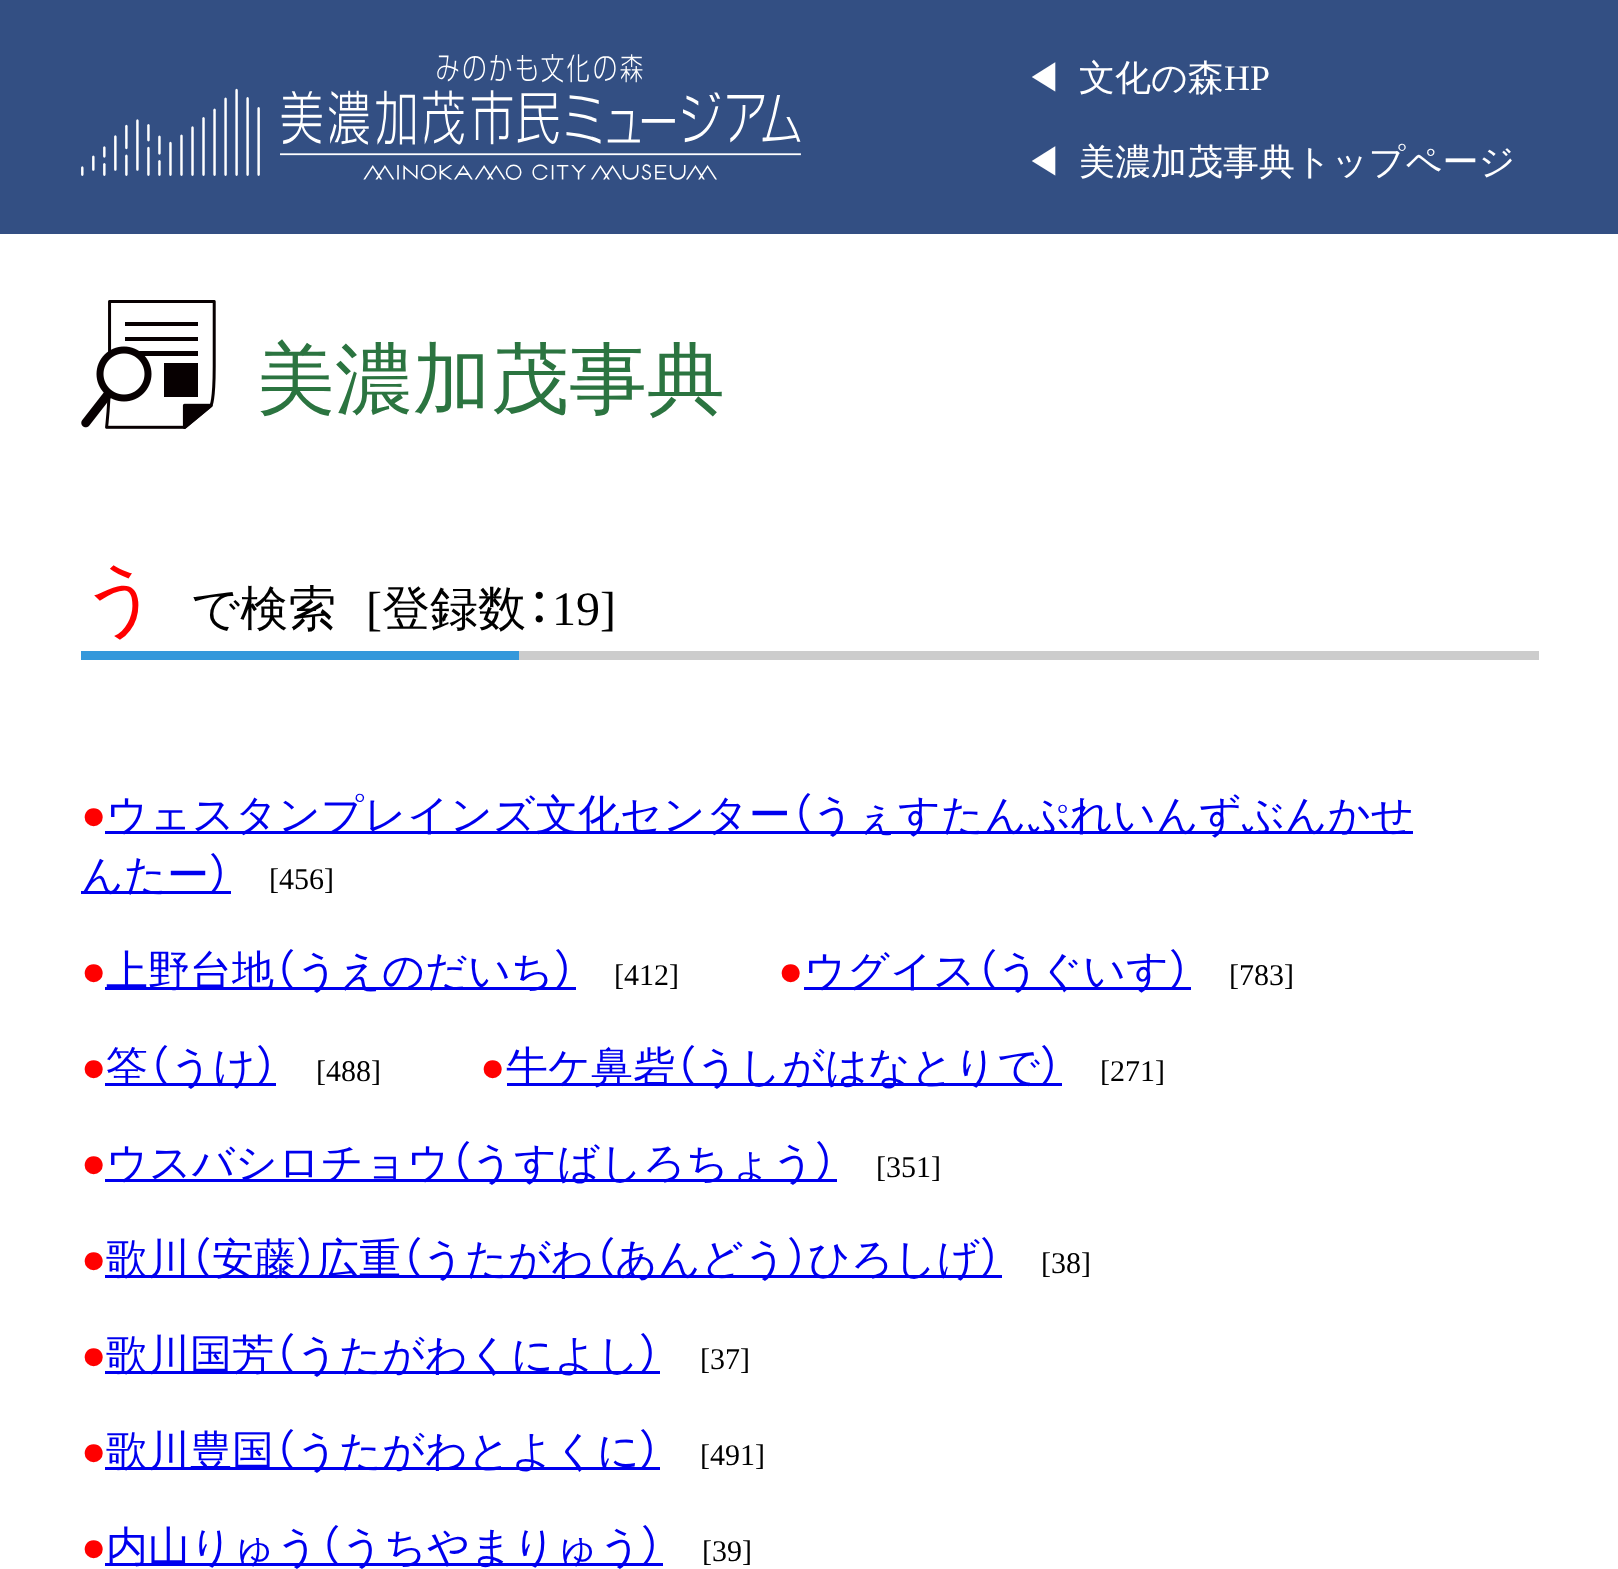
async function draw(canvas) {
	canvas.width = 1618;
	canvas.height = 1569;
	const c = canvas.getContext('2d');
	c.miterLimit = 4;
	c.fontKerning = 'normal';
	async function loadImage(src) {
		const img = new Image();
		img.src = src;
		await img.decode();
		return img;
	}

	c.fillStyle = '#fff';
	c.fillRect(0, 0, 1618, 1569);
	c.fillStyle = '#334f83';
	c.fillRect(0, 0, 1618, 234);
	c.drawImage(await loadImage('img1.png'), 81, 54, 720, 126);
	c.font = '500 36px WenQuanYi Zen Hei';
	c.fillStyle = '#fff';
	c.fillText('◀︎', 1025, 90);
	c.fillText('文化の森', 1079, 90);
	c.font = '36px Liberation Serif';
	c.fillText('HP', 1224, 90);
	c.font = '500 36px WenQuanYi Zen Hei';
	c.fillText('◀︎', 1025, 174);
	c.fillText('美濃加茂事典トップページ', 1079, 174);
	c.drawImage(await loadImage('img2.png'), 81, 300, 135, 129);
	c.font = '500 78px WenQuanYi Zen Hei';
	c.fillStyle = '#2b7440';
	c.fillText('美濃加茂事典', 257, 406);
	c.fillStyle = '#ccc';
	c.fillRect(519, 651, 1020, 9);
	c.fillStyle = '#f00';
	c.fillText('う', 81, 625);
	c.font = '500 48px WenQuanYi Zen Hei';
	c.fillStyle = '#000';
	c.fillText('で検索', 191, 625);
	c.font = '48px Liberation Serif';
	c.fillText('[', 366, 625);
	c.font = '500 48px WenQuanYi Zen Hei';
	c.fillText('登録数', 382, 625);
	c.font = '48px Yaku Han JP';
	c.fillText('：', 526, 625);
	c.font = '48px Liberation Serif';
	c.fillText('19]', 552, 625);
	c.fillStyle = '#3498db';
	c.fillRect(81, 651, 438, 9);
	c.font = '42px Liberation Serif';
	c.fillStyle = '#f00';
	c.fillText('●', 81, 829);
	c.fillStyle = '#00e';
	c.fillRect(105, 831, 1308, 3);
	c.font = '500 42px WenQuanYi Zen Hei';
	c.fillText('ウェスタンプレインズ文化センター', 106, 829);
	c.font = '42px Yaku Han JP';
	c.fillText('（', 791, 829);
	c.font = '500 42px WenQuanYi Zen Hei';
	c.fillText('うぇすたんぷれいんずぶんかせ', 812, 829);
	c.fillRect(81, 891, 150, 3);
	c.fillText('んたー', 81, 889);
	c.font = '42px Yaku Han JP';
	c.fillText('）', 209, 889);
	c.font = '30px Liberation Serif';
	c.fillStyle = '#000';
	c.fillText('[456]', 269, 889);
	c.font = '42px Liberation Serif';
	c.fillStyle = '#f00';
	c.fillText('●', 81, 985);
	c.fillStyle = '#00e';
	c.fillRect(105, 987, 471, 3);
	c.font = '500 42px WenQuanYi Zen Hei';
	c.fillText('上野台地', 106, 985);
	c.font = '42px Yaku Han JP';
	c.fillText('（', 274, 985);
	c.font = '500 42px WenQuanYi Zen Hei';
	c.fillText('うえのだいち', 296, 985);
	c.font = '42px Yaku Han JP';
	c.fillText('）', 554, 985);
	c.font = '30px Liberation Serif';
	c.fillStyle = '#000';
	c.fillText('[412]', 614, 985);
	c.font = '42px Liberation Serif';
	c.fillStyle = '#f00';
	c.fillText('●', 778, 985);
	c.fillStyle = '#00e';
	c.fillRect(804, 987, 387, 3);
	c.font = '500 42px WenQuanYi Zen Hei';
	c.fillText('ウグイス', 804, 985);
	c.font = '42px Yaku Han JP';
	c.fillText('（', 976, 985);
	c.font = '500 42px WenQuanYi Zen Hei';
	c.fillText('うぐいす', 997, 985);
	c.font = '42px Yaku Han JP';
	c.fillText('）', 1169, 985);
	c.font = '30px Liberation Serif';
	c.fillStyle = '#000';
	c.fillText('[783]', 1229, 985);
	c.font = '42px Liberation Serif';
	c.fillStyle = '#f00';
	c.fillText('●', 81, 1081);
	c.fillStyle = '#00e';
	c.fillRect(105, 1083, 171, 3);
	c.font = '500 42px WenQuanYi Zen Hei';
	c.fillText('筌', 106, 1081);
	c.font = '42px Yaku Han JP';
	c.fillText('（', 148, 1081);
	c.font = '500 42px WenQuanYi Zen Hei';
	c.fillText('うけ', 170, 1081);
	c.font = '42px Yaku Han JP';
	c.fillText('）', 256, 1081);
	c.font = '30px Liberation Serif';
	c.fillStyle = '#000';
	c.fillText('[488]', 316, 1081);
	c.font = '42px Liberation Serif';
	c.fillStyle = '#f00';
	c.fillText('●', 480, 1081);
	c.fillStyle = '#00e';
	c.fillRect(507, 1083, 555, 3);
	c.font = '500 42px WenQuanYi Zen Hei';
	c.fillText('牛ケ鼻砦', 506, 1081);
	c.font = '42px Yaku Han JP';
	c.fillText('（', 675, 1081);
	c.font = '500 42px WenQuanYi Zen Hei';
	c.fillText('うしがはなとりで', 696, 1081);
	c.font = '42px Yaku Han JP';
	c.fillText('）', 1040, 1081);
	c.font = '30px Liberation Serif';
	c.fillStyle = '#000';
	c.fillText('[271]', 1100, 1081);
	c.font = '42px Liberation Serif';
	c.fillStyle = '#f00';
	c.fillText('●', 81, 1177);
	c.fillStyle = '#00e';
	c.fillRect(105, 1179, 732, 3);
	c.font = '500 42px WenQuanYi Zen Hei';
	c.fillText('ウスバシロチョウ', 106, 1177);
	c.font = '42px Yaku Han JP';
	c.fillText('（', 450, 1177);
	c.font = '500 42px WenQuanYi Zen Hei';
	c.fillText('うすばしろちょう', 471, 1177);
	c.font = '42px Yaku Han JP';
	c.fillText('）', 815, 1177);
	c.font = '30px Liberation Serif';
	c.fillStyle = '#000';
	c.fillText('[351]', 876, 1177);
	c.font = '42px Liberation Serif';
	c.fillStyle = '#f00';
	c.fillText('●', 81, 1273);
	c.fillStyle = '#00e';
	c.fillRect(105, 1275, 897, 3);
	c.font = '500 42px WenQuanYi Zen Hei';
	c.fillText('歌川', 106, 1273);
	c.font = '42px Yaku Han JP';
	c.fillText('（', 190, 1273);
	c.font = '500 42px WenQuanYi Zen Hei';
	c.fillText('安藤', 212, 1273);
	c.font = '42px Yaku Han JP';
	c.fillText('）', 296, 1273);
	c.font = '500 42px WenQuanYi Zen Hei';
	c.fillText('広重', 317, 1273);
	c.font = '42px Yaku Han JP';
	c.fillText('（', 401, 1273);
	c.font = '500 42px WenQuanYi Zen Hei';
	c.fillText('うたがわ', 422, 1273);
	c.font = '42px Yaku Han JP';
	c.fillText('（', 594, 1273);
	c.font = '500 42px WenQuanYi Zen Hei';
	c.fillText('あんどう', 615, 1273);
	c.font = '42px Yaku Han JP';
	c.fillText('）', 787, 1273);
	c.font = '500 42px WenQuanYi Zen Hei';
	c.fillText('ひろしげ', 808, 1273);
	c.font = '42px Yaku Han JP';
	c.fillText('）', 980, 1273);
	c.font = '30px Liberation Serif';
	c.fillStyle = '#000';
	c.fillText('[38]', 1041, 1273);
	c.font = '42px Liberation Serif';
	c.fillStyle = '#f00';
	c.fillText('●', 81, 1369);
	c.fillStyle = '#00e';
	c.fillRect(105, 1371, 555, 3);
	c.font = '500 42px WenQuanYi Zen Hei';
	c.fillText('歌川国芳', 106, 1369);
	c.font = '42px Yaku Han JP';
	c.fillText('（', 274, 1369);
	c.font = '500 42px WenQuanYi Zen Hei';
	c.fillText('うたがわくによし', 296, 1369);
	c.font = '42px Yaku Han JP';
	c.fillText('）', 639, 1369);
	c.font = '30px Liberation Serif';
	c.fillStyle = '#000';
	c.fillText('[37]', 700, 1369);
	c.font = '42px Liberation Serif';
	c.fillStyle = '#f00';
	c.fillText('●', 81, 1465);
	c.fillStyle = '#00e';
	c.fillRect(105, 1467, 555, 3);
	c.font = '500 42px WenQuanYi Zen Hei';
	c.fillText('歌川豊国', 106, 1465);
	c.font = '42px Yaku Han JP';
	c.fillText('（', 274, 1465);
	c.font = '500 42px WenQuanYi Zen Hei';
	c.fillText('うたがわとよくに', 296, 1465);
	c.font = '42px Yaku Han JP';
	c.fillText('）', 639, 1465);
	c.font = '30px Liberation Serif';
	c.fillStyle = '#000';
	c.fillText('[491]', 700, 1465);
	c.font = '42px Liberation Serif';
	c.fillStyle = '#f00';
	c.fillText('●', 81, 1561);
	c.fillStyle = '#00e';
	c.fillRect(105, 1563, 558, 3);
	c.font = '500 42px WenQuanYi Zen Hei';
	c.fillText('内山りゅう', 106, 1561);
	c.font = '42px Yaku Han JP';
	c.fillText('（', 319, 1561);
	c.font = '500 42px WenQuanYi Zen Hei';
	c.fillText('うちやまりゅう', 341, 1561);
	c.font = '42px Yaku Han JP';
	c.fillText('）', 641, 1561);
	c.font = '30px Liberation Serif';
	c.fillStyle = '#000';
	c.fillText('[39]', 702, 1561);
}

draw(document.querySelector('canvas'));
